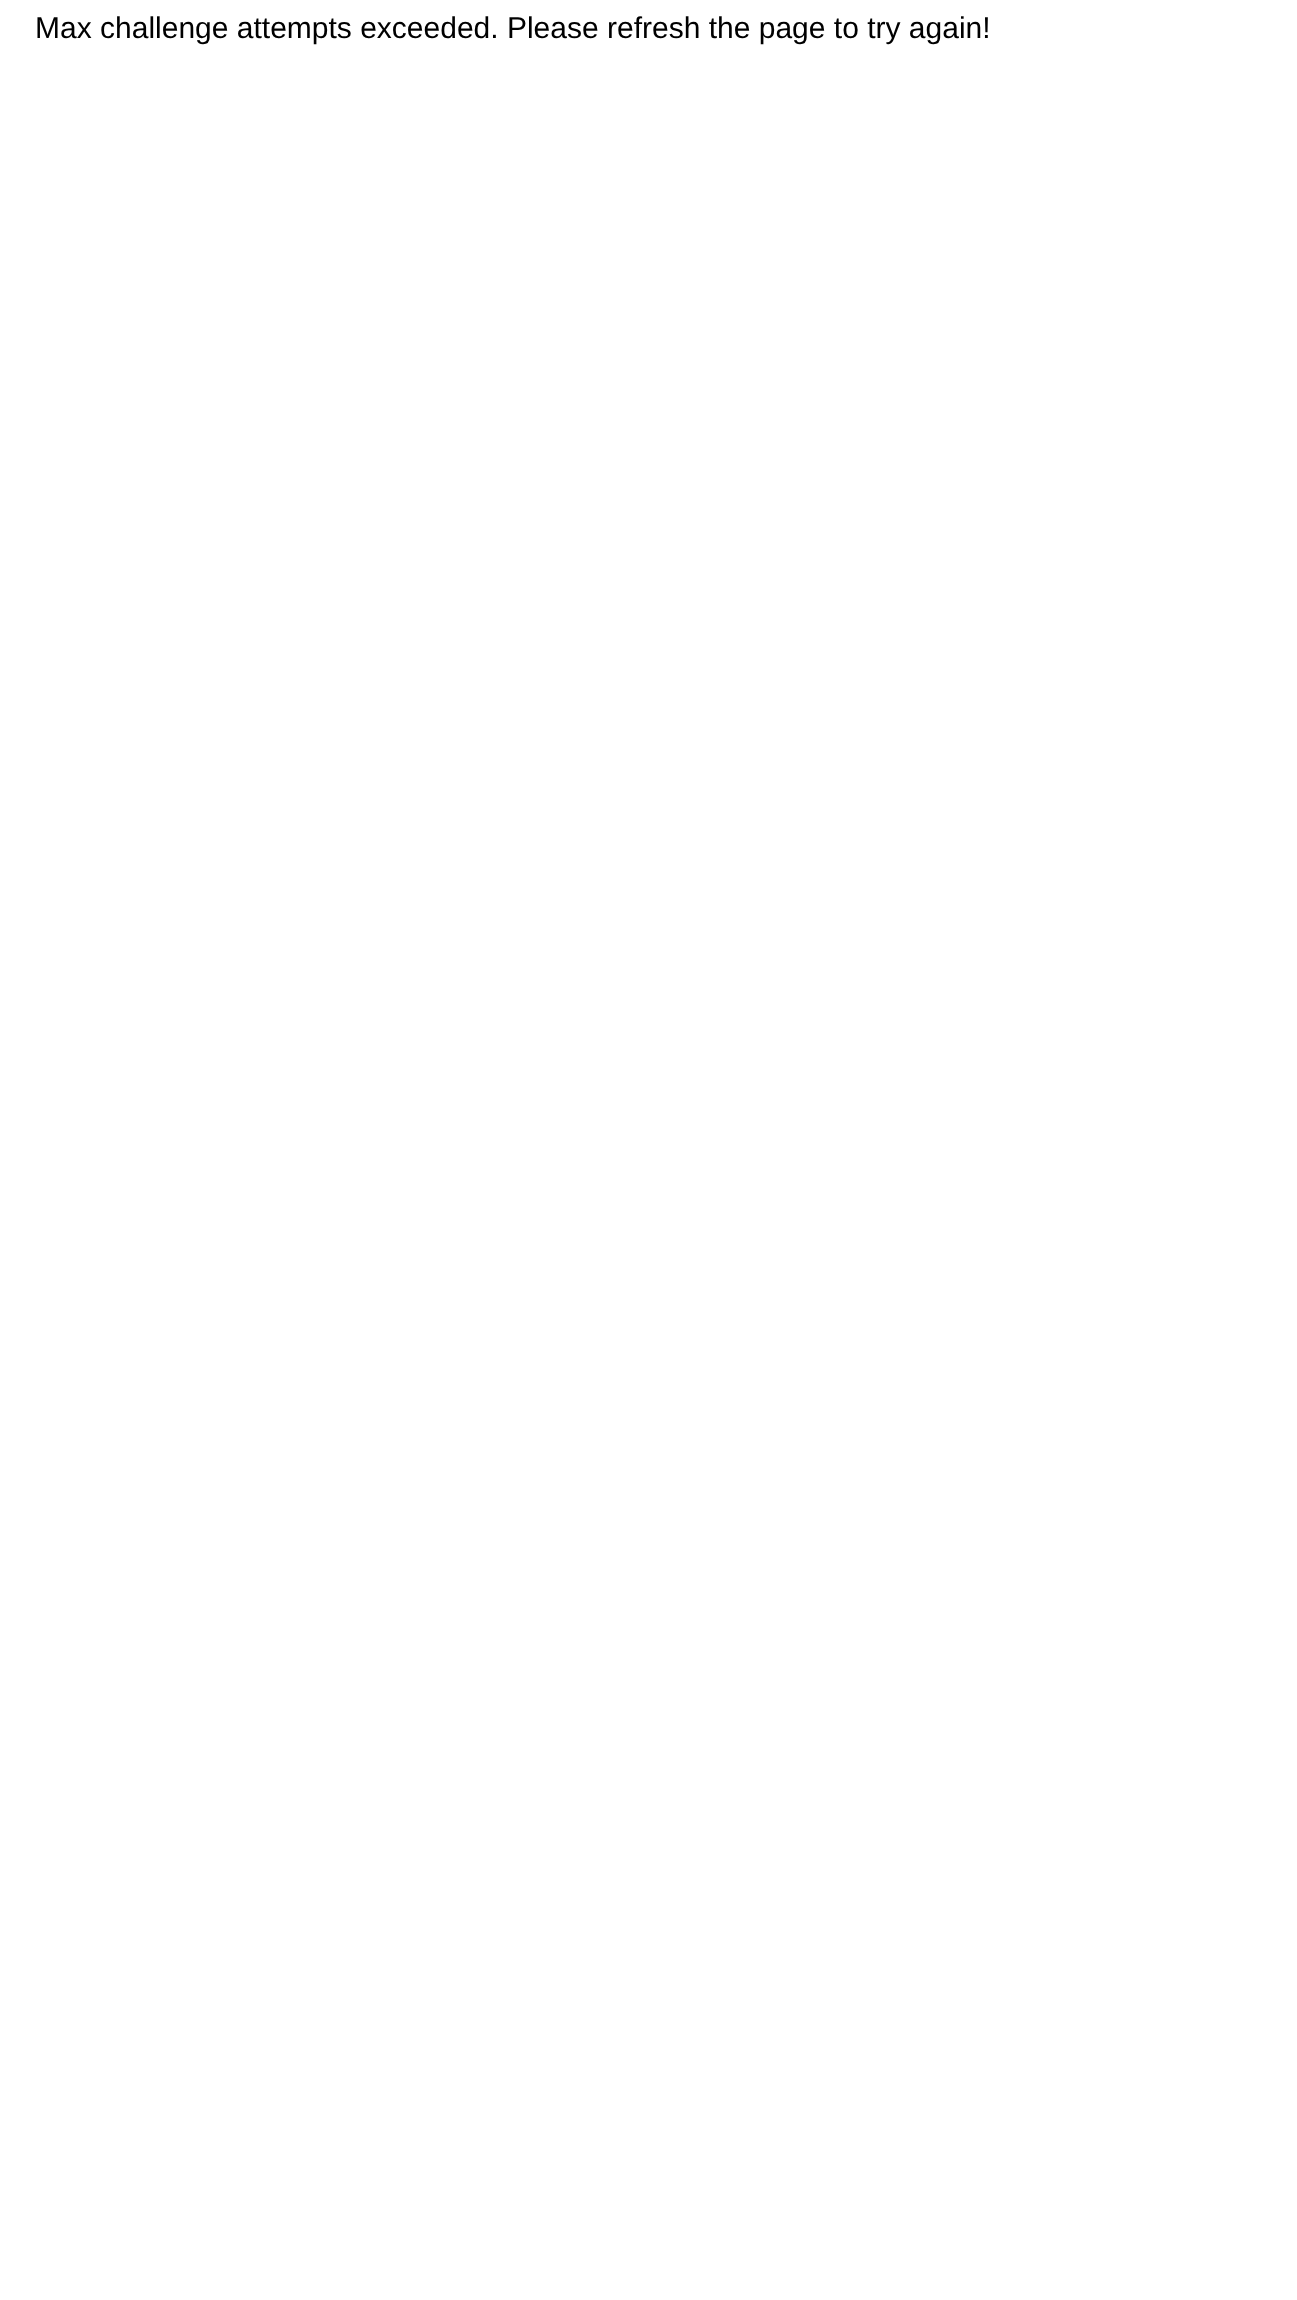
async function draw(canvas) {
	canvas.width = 1297;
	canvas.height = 2300;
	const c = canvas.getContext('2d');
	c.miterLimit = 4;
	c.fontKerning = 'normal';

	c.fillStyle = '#fff';
	c.fillRect(0, 0, 1297, 2300);
	c.font = '30px Liberation Sans';
	c.fillStyle = '#000';
	c.fillText('Max challenge attempts exceeded. Please refresh the page to try again!', 35, 38);
}

draw(document.querySelector('canvas'));
